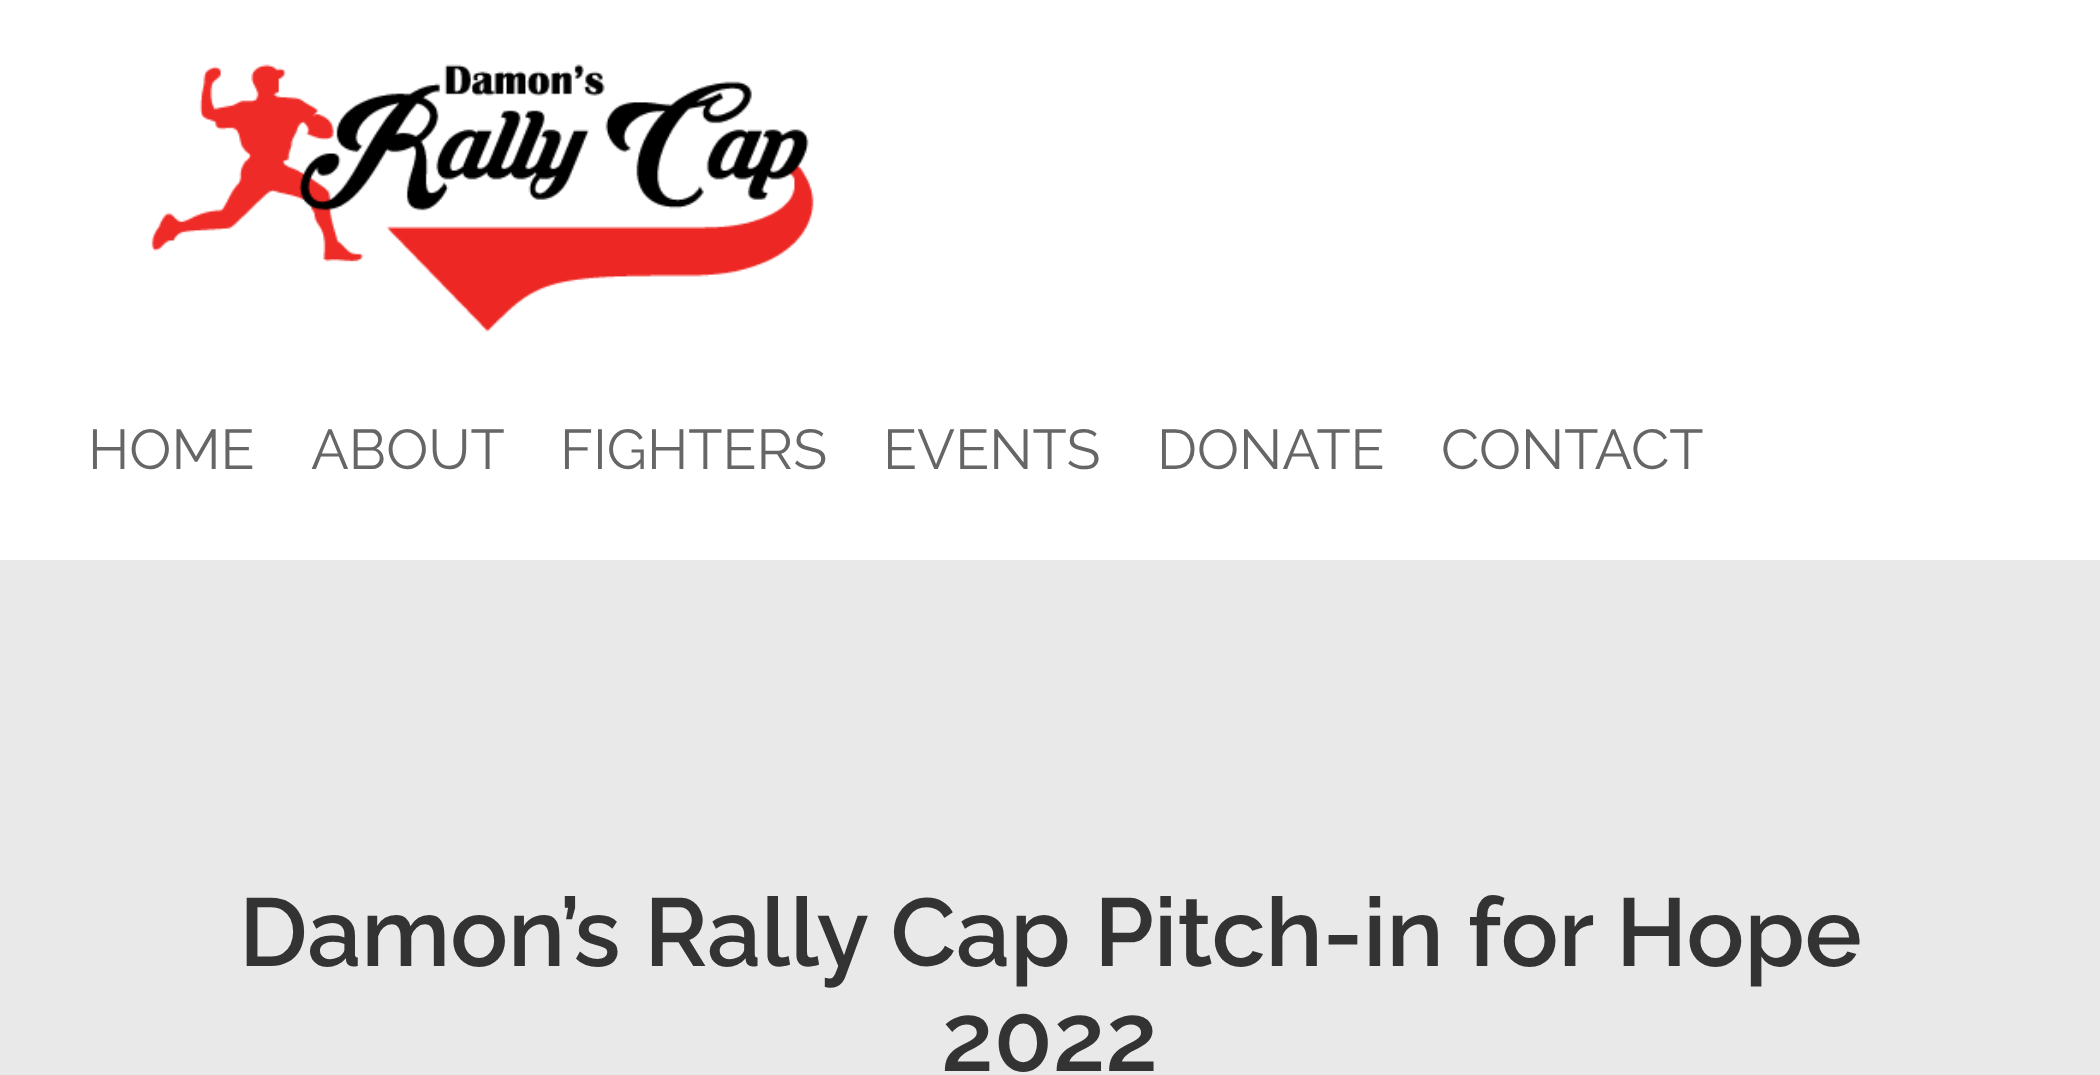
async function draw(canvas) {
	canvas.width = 2100;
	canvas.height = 1075;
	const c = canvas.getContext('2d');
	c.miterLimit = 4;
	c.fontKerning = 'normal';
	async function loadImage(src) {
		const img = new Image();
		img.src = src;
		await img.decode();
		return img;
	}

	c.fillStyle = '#fff';
	c.fillRect(0, 0, 2100, 1075);
	c.drawImage(await loadImage('img1.png'), 151, 64, 663, 268);
	c.font = '56px Raleway';
	c.fillStyle = '#666';
	for (const [text, x, y] of [
		['HOME', 88, 469],
		['ABOUT', 311, 469],
		['FIGHTERS', 560, 469],
		['EVENTS', 883, 469],
		['DONATE', 1157, 469],
		['CONTACT', 1441, 469],
	]) {
		c.fillText(text, x, y);
	}
	c.fillStyle = '#e9e9e9';
	c.fillRect(0, 560, 2100, 515);
	c.font = '600 96px Raleway';
	c.fillStyle = '#333';
	c.fillText('Damon’s Rally Cap Pitch-in for Hope', 239, 966);
	c.fillText('2022', 941, 1071);
}

draw(document.querySelector('canvas'));
